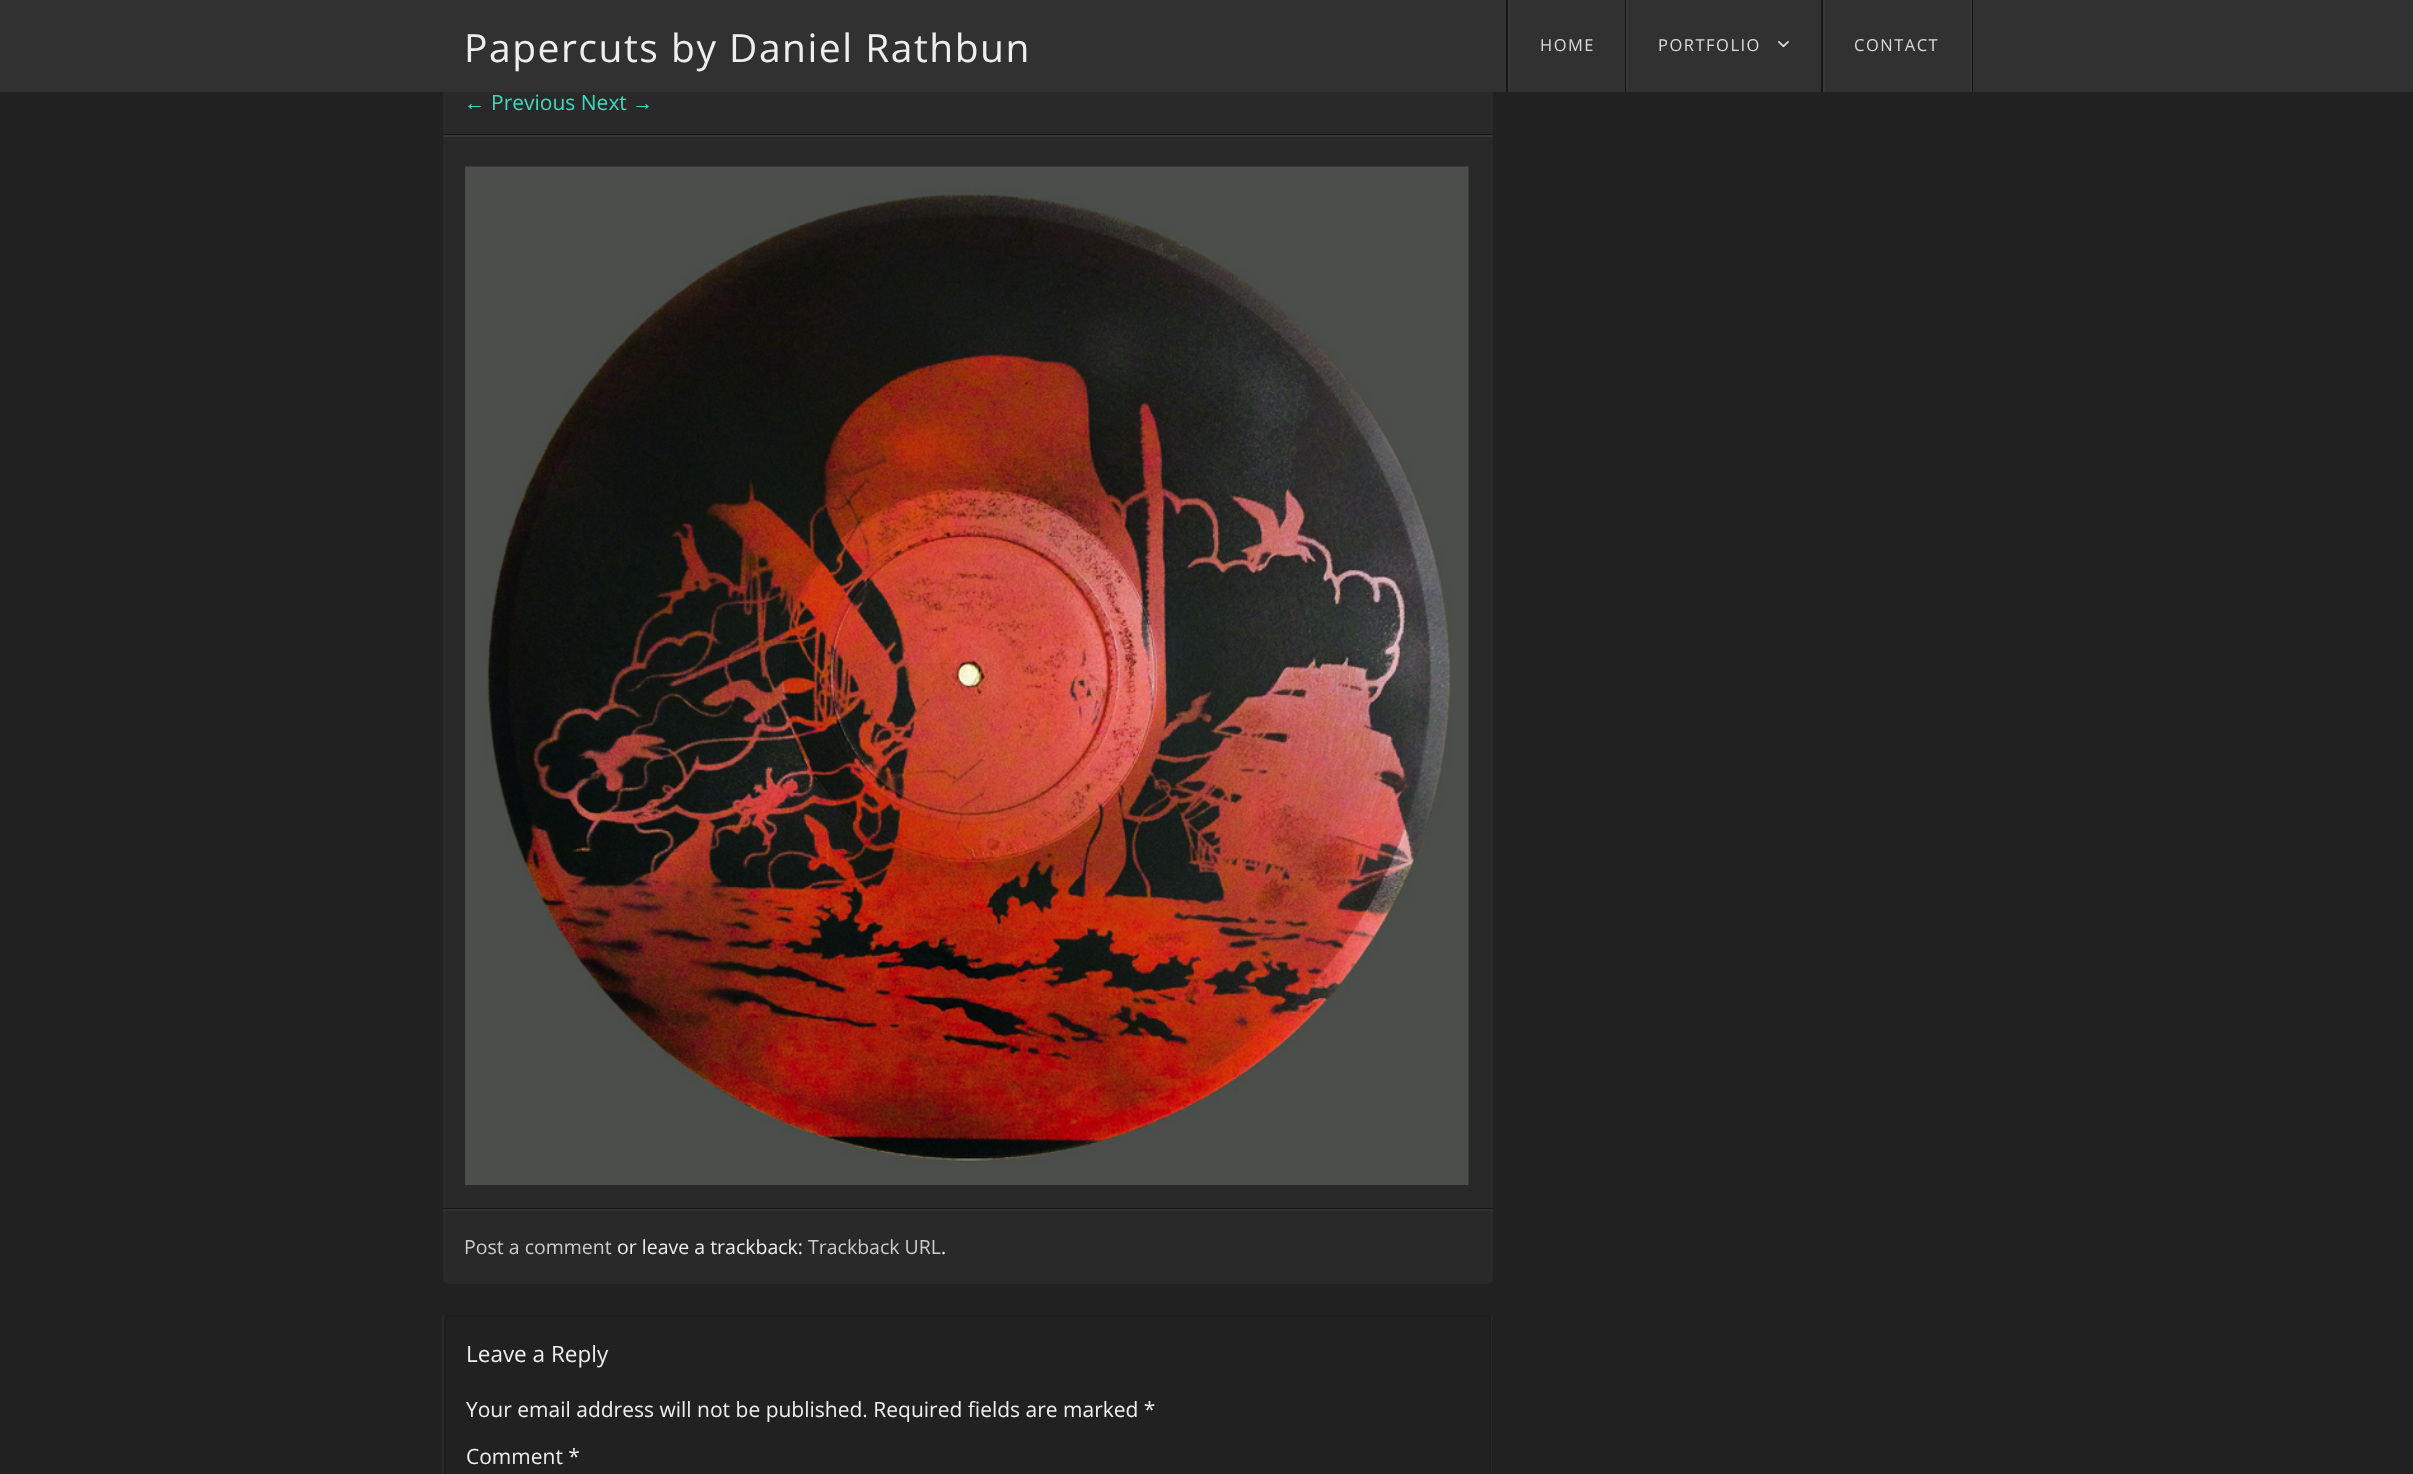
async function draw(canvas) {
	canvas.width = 2413;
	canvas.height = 1474;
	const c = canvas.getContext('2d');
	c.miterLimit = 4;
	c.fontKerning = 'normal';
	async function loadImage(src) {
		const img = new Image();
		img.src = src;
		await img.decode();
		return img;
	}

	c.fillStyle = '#212121';
	c.fillRect(0, 0, 2413, 1474);
	c.fillStyle = '#292929';
	c.beginPath();
	c.roundRect(443, -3, 1050, 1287, 5);
	c.fill();
	c.fillStyle = '#313131';
	c.fillRect(0, 0, 2413, 92);
	c.letterSpacing = '1.5px';
	c.font = '39px Open Sans';
	c.fillStyle = '#eee';
	c.fillText('Papercuts by Daniel Rathbun', 464, 62);
	for (const [x, y, w, h, color] of [
		[1972, 0, 1, 92, '#161616'],
		[1506, 0, 2, 92, '#161616'],
		[1508, 0, 2, 92, '#363636'],
	]) {
		c.fillStyle = color;
		c.fillRect(x, y, w, h);
	}
	c.font = '16.5px Open Sans';
	c.fillStyle = '#ddd';
	c.fillText('HOME', 1540, 51);
	c.fillStyle = '#161616';
	c.fillRect(1625, 0, 1, 92);
	c.fillStyle = '#363636';
	c.fillRect(1626, 0, 2, 92);
	c.fillStyle = '#ddd';
	c.fillText('PORTFOLIO', 1658, 51);
	c.drawImage(await loadImage('img1.png'), 1777, 41, 12, 7);
	for (const [x, y, w, h, color] of [
		[1821, 0, 2, 92, '#161616'],
		[1970, 0, 2, 92, '#363636'],
		[1823, 0, 2, 92, '#363636'],
	]) {
		c.fillStyle = color;
		c.fillRect(x, y, w, h);
	}
	c.fillStyle = '#ddd';
	c.fillText('CONTACT', 1854, 51);
	c.fillStyle = '#161616';
	c.fillRect(443, 134, 1050, 1);
	c.letterSpacing = '0px';
	c.font = '21px Liberation Sans';
	c.fillStyle = '#40d7bc';
	c.fillText('←', 464, 110);
	c.font = '21px Open Sans';
	c.fillText('Previous Next', 491, 110);
	c.font = '21px Liberation Sans';
	c.fillText('→', 632, 110);
	c.fillStyle = '#363636';
	c.fillRect(443, 135, 1050, 2);
	c.fillStyle = '#161616';
	c.fillRect(443, 1208, 1050, 1);
	c.drawImage(await loadImage('img2.png'), 465, 166, 1004, 1019);
	c.fillStyle = '#333';
	c.fillRect(443, 1209, 1050, 2);
	c.font = '19.5px Open Sans';
	c.fillStyle = '#ccc';
	c.fillText('Post a comment', 464, 1254);
	c.fillStyle = '#eee';
	c.fillText('or leave a trackback:', 617, 1254);
	c.fillStyle = '#ccc';
	c.fillText('Trackback URL', 808, 1254);
	c.fillStyle = '#eee';
	c.fillText('.', 941, 1254);
	c.fillStyle = '#1e1e1e';
	c.beginPath();
	c.moveTo(447, 1317);
	c.lineTo(1488, 1317);
	c.bezierCurveTo(1489, 1317, 1490, 1318, 1490, 1320);
	c.lineTo(1490, 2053);
	c.bezierCurveTo(1490, 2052, 1491, 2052, 1491, 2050);
	c.lineTo(1491, 1318);
	c.bezierCurveTo(1491, 1316, 1490, 1314, 1488, 1314);
	c.lineTo(447, 1314);
	c.bezierCurveTo(445, 1314, 444, 1316, 444, 1318);
	c.lineTo(444, 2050);
	c.bezierCurveTo(444, 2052, 445, 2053, 446, 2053);
	c.lineTo(446, 1320);
	c.bezierCurveTo(446, 1319, 446, 1317, 447, 1317);
	c.closePath();
	c.fill();
	c.fillStyle = '#292929';
	c.beginPath();
	c.moveTo(447, 1314);
	c.lineTo(1488, 1314);
	c.bezierCurveTo(1490, 1314, 1492, 1316, 1492, 1318);
	c.lineTo(1492, 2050);
	c.bezierCurveTo(1492, 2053, 1490, 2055, 1488, 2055);
	c.lineTo(447, 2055);
	c.bezierCurveTo(445, 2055, 442, 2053, 442, 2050);
	c.lineTo(442, 1318);
	c.bezierCurveTo(442, 1316, 445, 1314, 447, 1314);
	c.closePath();
	c.moveTo(447, 1314);
	c.lineTo(1488, 1314);
	c.bezierCurveTo(1490, 1314, 1491, 1316, 1491, 1318);
	c.lineTo(1491, 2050);
	c.bezierCurveTo(1491, 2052, 1490, 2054, 1488, 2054);
	c.lineTo(447, 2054);
	c.bezierCurveTo(445, 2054, 444, 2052, 444, 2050);
	c.lineTo(444, 1318);
	c.bezierCurveTo(444, 1316, 445, 1314, 447, 1314);
	c.closePath();
	c.fill('evenodd');
	c.font = '22.5px Open Sans';
	c.fillStyle = '#eee';
	c.fillText('Leave a Reply', 466, 1362);
	c.font = '21px Open Sans';
	c.fillText('Your email address will not be published. Required fields are marked *', 466, 1417);
	c.fillText('Comment *', 466, 1464);
}

draw(document.querySelector('canvas'));
